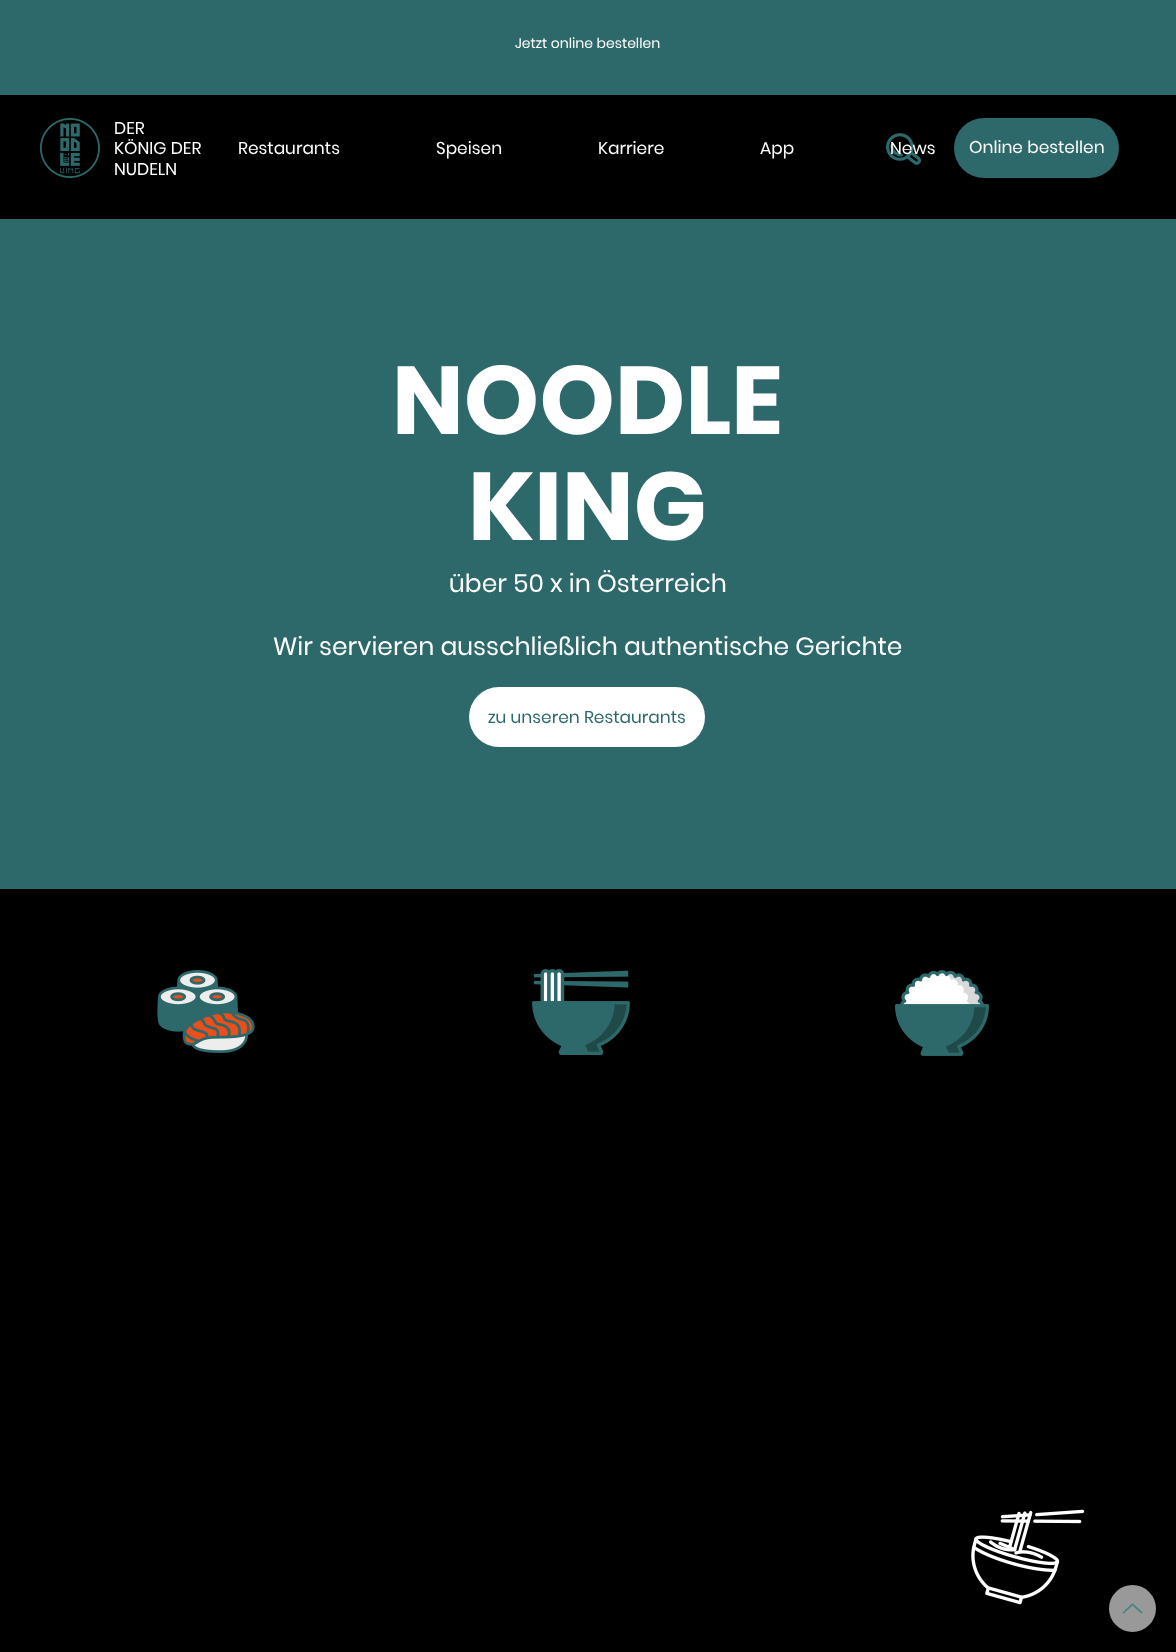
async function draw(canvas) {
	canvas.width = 1176;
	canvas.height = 1652;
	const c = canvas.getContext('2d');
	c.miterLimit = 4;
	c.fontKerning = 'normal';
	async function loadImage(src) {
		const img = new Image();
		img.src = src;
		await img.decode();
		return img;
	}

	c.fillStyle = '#2d696a';
	c.fillRect(0, 0, 1176, 1652);
	c.font = '14px Poppins';
	c.fillStyle = '#fff';
	c.fillText('Jetzt online bestellen', 515, 48);
	c.fillStyle = '#000';
	c.fillRect(0, 95, 1176, 124);
	c.drawImage(await loadImage('img1.png'), 40, 118, 60, 60);
	c.font = '17px Poppins';
	c.fillStyle = '#fff';
	for (const [text, x, y] of [
		['DER', 114, 134],
		['KÖNIG DER', 114, 154],
		['NUDELN', 114, 175],
	]) {
		c.fillText(text, x, y);
	}
	c.drawImage(await loadImage('img2.png'), 886, 133, 35, 32);
	c.fillStyle = '#2d696a';
	c.beginPath();
	c.roundRect(954, 118, 165, 60, 30);
	c.fill();
	c.fillStyle = '#fff';
	for (const [text, x, y] of [
		['Online bestellen', 969, 153],
		['Restaurants', 238, 154],
		['Speisen', 436, 154],
		['Karriere', 598, 154],
		['App', 760, 154],
		['News', 890, 154],
	]) {
		c.fillText(text, x, y);
	}
	c.font = 'bold 96px Poppins';
	c.fillText('NOODLE', 392, 434);
	c.fillText('KING', 468, 540);
	c.font = '25px Poppins';
	c.fillText('über 50 x in Österreich', 449, 592);
	c.fillText('Wir servieren ausschließlich authentische Gerichte', 273, 655);
	c.beginPath();
	c.roundRect(469, 687, 236, 60, 30);
	c.fill();
	c.font = '17px Poppins';
	c.fillStyle = '#2d696a';
	c.fillText('zu unseren Restaurants', 488, 723);
	c.fillStyle = '#000';
	c.fillRect(0, 889, 1176, 763);
	c.drawImage(await loadImage('img3.png'), 157, 970, 98, 83);
	c.drawImage(await loadImage('img4.png'), 532, 969, 98, 86);
	c.drawImage(await loadImage('img5.png'), 895, 970, 94, 86);
	c.drawImage(await loadImage('img6.png'), 971, 1509, 114, 96);
	c.fillStyle = '#999';
	c.beginPath();
	c.arc(1132.5, 1608.5, 23.5, 0, 2 * Math.PI);
	c.fill();
	c.drawImage(await loadImage('img7.png'), 1122, 1603, 21, 11);
}

draw(document.querySelector('canvas'));
